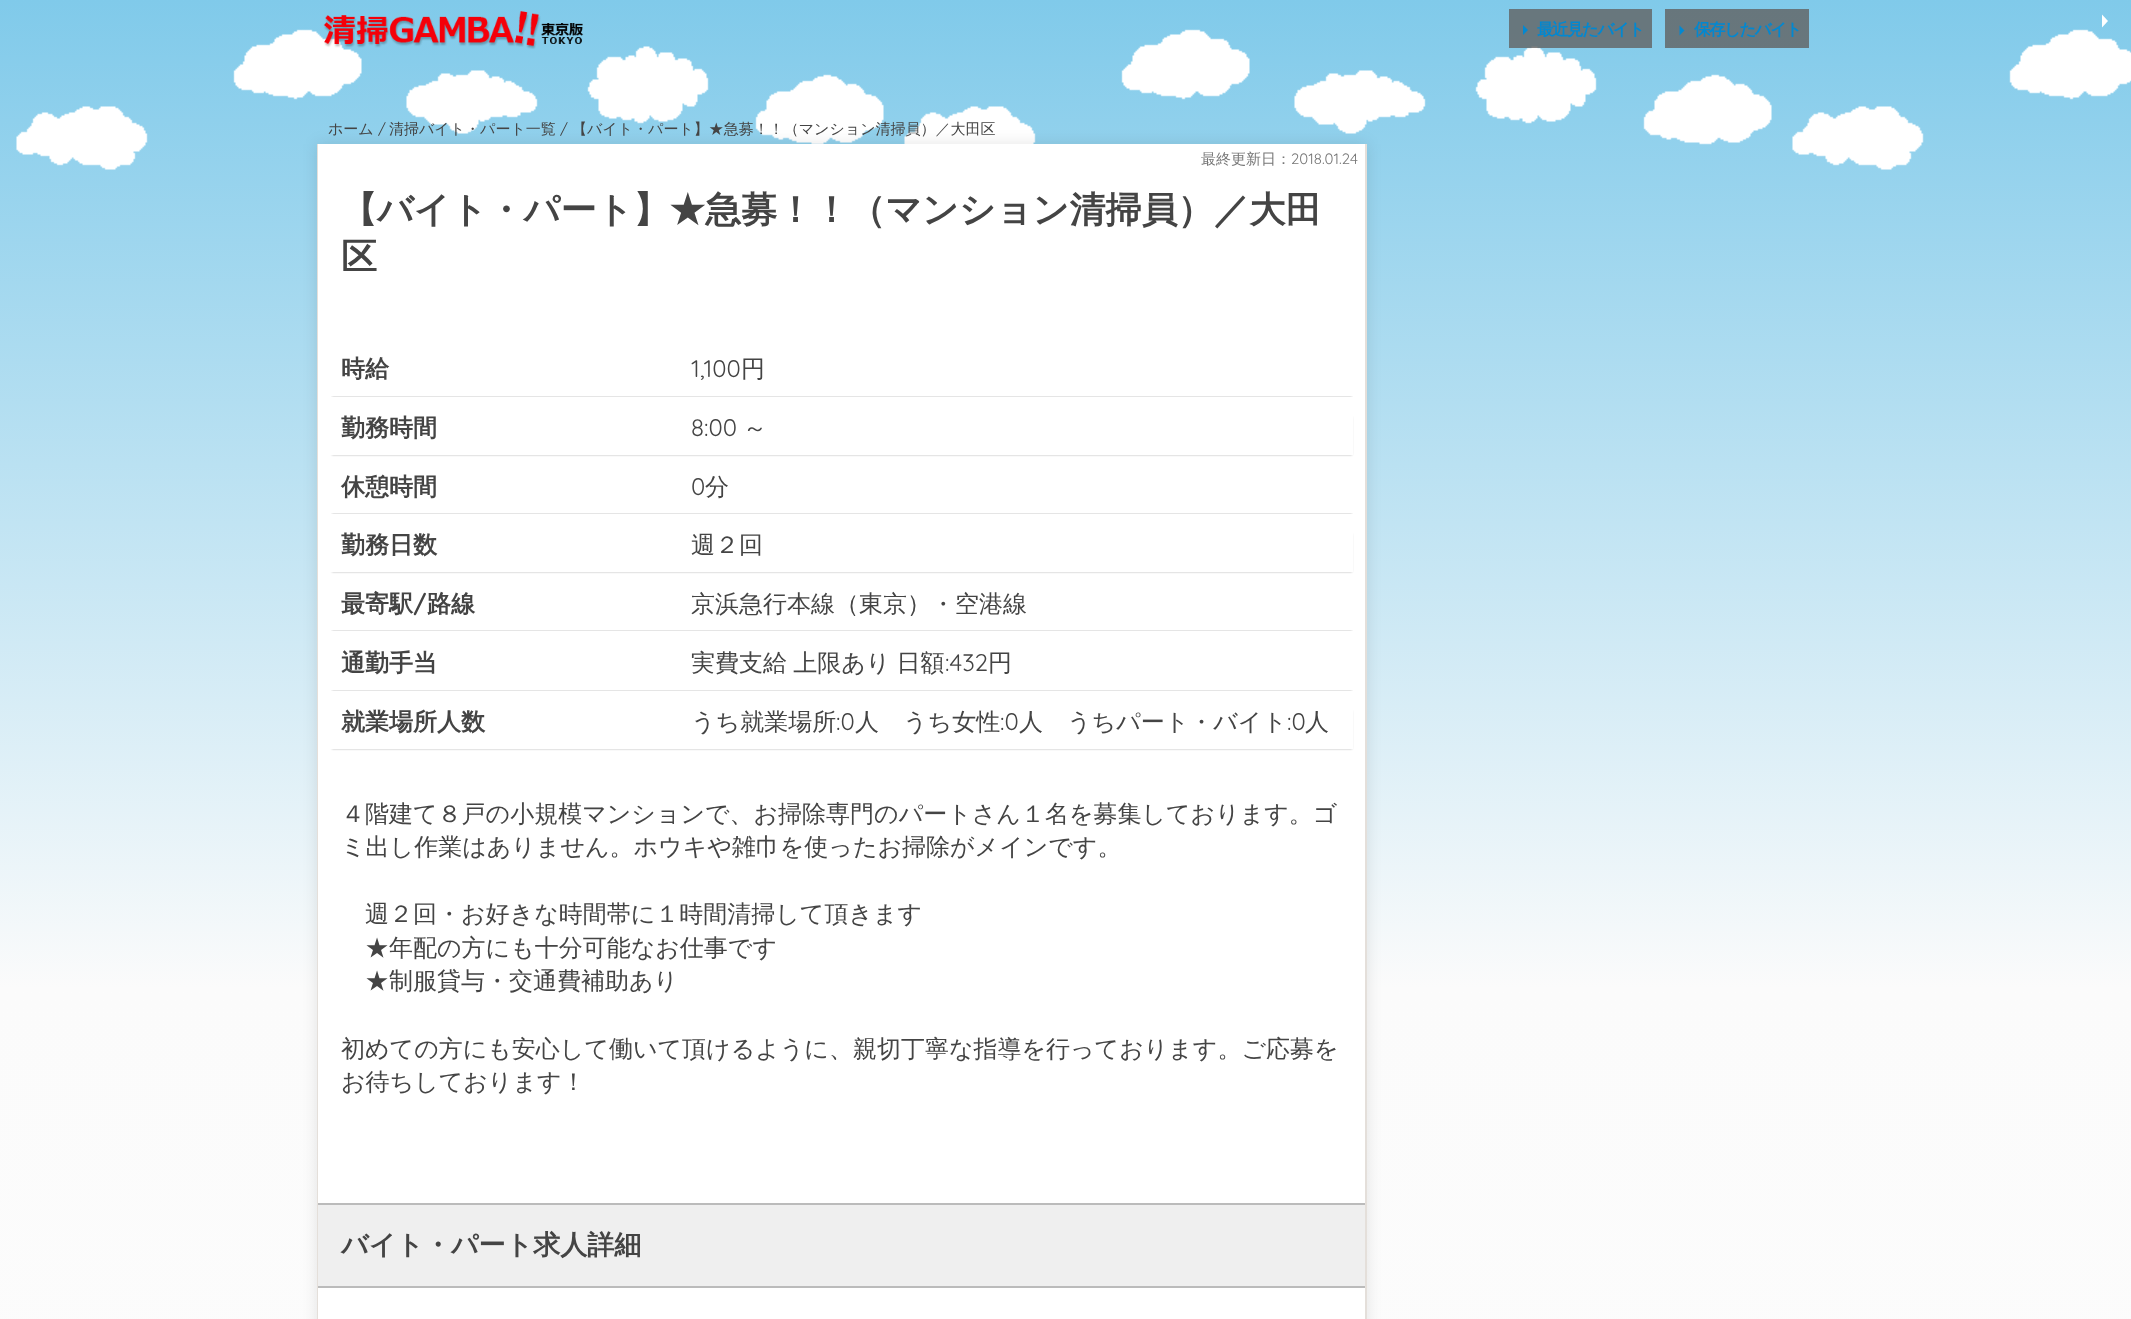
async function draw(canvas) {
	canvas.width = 2131;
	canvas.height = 1319;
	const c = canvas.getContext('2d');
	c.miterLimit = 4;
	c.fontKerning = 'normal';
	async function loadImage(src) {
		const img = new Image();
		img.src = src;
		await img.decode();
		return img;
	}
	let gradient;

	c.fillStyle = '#fff';
	c.fillRect(0, 0, 2131, 1319);
	gradient = c.createLinearGradient(1066, 0, 1066, 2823);
	gradient.addColorStop(0, '#80caea');
	gradient.addColorStop(0.35, '#fbfbfb');
	gradient.addColorStop(1, '#fff');
	c.fillStyle = gradient;
	c.fillRect(0, 0, 2131, 1319);
	gradient = c.createLinearGradient(1066, 0, 1066, 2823);
	gradient.addColorStop(0, '#67767c');
	gradient.addColorStop(0.35, '#808080');
	gradient.addColorStop(1, '#818181');
	c.fillStyle = gradient;
	c.fillRect(1665, 9, 144, 39);
	c.drawImage(await loadImage('img1.png'), 16, 29, 2115, 141);
	c.drawImage(await loadImage('img2.png'), 323, 11, 261, 38);
	c.fillStyle = '#616161cc';
	c.fillRect(1509, 9, 143, 39);
	c.fillStyle = '#0288d1';
	c.beginPath();
	c.moveTo(1523, 35);
	c.lineTo(1523, 25);
	c.lineTo(1528, 30);
	c.closePath();
	c.fill();
	c.letterSpacing = '-1.5px';
	c.font = 'bold 16.5px WenQuanYi Zen Hei';
	c.fillText('最近見たバイト', 1537, 35);
	c.beginPath();
	c.moveTo(1679.5, 35.5);
	c.lineTo(1679.5, 25.5);
	c.lineTo(1684.5, 30.5);
	c.closePath();
	c.fill();
	c.fillText('保存したバイト', 1694, 35);
	c.fillStyle = '#0000001a';
	c.filter = 'blur(7.5px)';
	c.beginPath();
	c.rect(317, 144, 1050, 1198);
	c.fill();
	c.filter = 'none';
	c.letterSpacing = '0px';
	c.font = '500 15px WenQuanYi Zen Hei';
	c.fillStyle = '#444';
	c.fillText('ホーム', 328, 134);
	c.font = '15px Quicksand';
	c.fillText('/', 378, 134);
	c.font = '500 15px WenQuanYi Zen Hei';
	c.fillText('清掃バイト・パート一覧', 389, 134);
	c.font = '15px Quicksand';
	c.fillText('/', 560, 134);
	c.font = '500 15px WenQuanYi Zen Hei';
	c.fillText('【バイト・パート】★急募！！（マンション清掃員）／大田区', 572, 134);
	c.fillStyle = '#e4dfda';
	c.fillRect(1365, 144, 2, 1175);
	c.fillRect(317, 144, 1, 1175);
	c.fillStyle = '#fff';
	c.beginPath();
	c.moveTo(2102, 14.5);
	c.lineTo(2108, 21);
	c.lineTo(2102, 27.5);
	c.closePath();
	c.fill();
	c.fillRect(318, 144, 1047, 1175);
	c.fillStyle = '#777';
	c.fillText('最終更新日：', 1201, 164);
	c.font = '15px Quicksand';
	c.fillText('2018.01.24', 1291, 164);
	c.font = 'bold 36px WenQuanYi Zen Hei';
	c.fillStyle = '#444';
	c.fillText('【バイト・パート】★急募！！（マンション清掃員）／大田', 341, 222);
	c.fillText('区', 341, 269);
	c.save();
	c.beginPath();
	c.rect(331, 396, 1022, 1);
	c.clip();
	c.fillStyle = '#0000004d';
	c.filter = 'blur(1px)';
	c.beginPath();
	c.rect(332, 357, 1020, 39);
	c.fill();
	c.filter = 'none';
	c.restore();
	c.font = 'bold 24px WenQuanYi Zen Hei';
	c.fillText('時給', 341, 377);
	c.font = '24px Quicksand';
	c.fillText('1,100', 691, 377);
	c.font = '500 24px WenQuanYi Zen Hei';
	c.fillText('円', 741, 377);
	c.save();
	c.beginPath();
	c.moveTo(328, 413);
	c.lineTo(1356, 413);
	c.lineTo(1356, 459);
	c.lineTo(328, 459);
	c.closePath();
	c.moveTo(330, 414);
	c.lineTo(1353, 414);
	c.lineTo(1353, 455);
	c.lineTo(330, 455);
	c.closePath();
	c.clip('evenodd');
	c.fillStyle = '#0000004d';
	c.filter = 'blur(1px)';
	c.beginPath();
	c.rect(332, 417, 1020, 38);
	c.fill();
	c.filter = 'none';
	c.restore();
	c.font = 'bold 24px WenQuanYi Zen Hei';
	c.fillText('勤務時間', 341, 436);
	c.font = '24px Quicksand';
	c.fillText('8:00', 691, 436);
	c.font = '500 24px WenQuanYi Zen Hei';
	c.fillText('～', 743, 436);
	c.save();
	c.beginPath();
	c.rect(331, 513, 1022, 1);
	c.clip();
	c.fillStyle = '#0000004d';
	c.filter = 'blur(1px)';
	c.beginPath();
	c.rect(332, 476, 1020, 37);
	c.fill();
	c.filter = 'none';
	c.restore();
	c.font = 'bold 24px WenQuanYi Zen Hei';
	c.fillText('休憩時間', 341, 495);
	c.font = '24px Quicksand';
	c.fillText('0', 691, 495);
	c.font = '500 24px WenQuanYi Zen Hei';
	c.fillText('分', 705, 495);
	c.save();
	c.beginPath();
	c.moveTo(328, 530);
	c.lineTo(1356, 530);
	c.lineTo(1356, 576);
	c.lineTo(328, 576);
	c.closePath();
	c.moveTo(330, 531);
	c.lineTo(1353, 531);
	c.lineTo(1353, 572);
	c.lineTo(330, 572);
	c.closePath();
	c.clip('evenodd');
	c.fillStyle = '#0000004d';
	c.filter = 'blur(1px)';
	c.beginPath();
	c.rect(332, 534, 1020, 38);
	c.fill();
	c.filter = 'none';
	c.restore();
	c.font = 'bold 24px WenQuanYi Zen Hei';
	c.fillText('勤務日数', 341, 553);
	c.font = '500 24px WenQuanYi Zen Hei';
	c.fillText('週２回', 691, 553);
	c.save();
	c.beginPath();
	c.rect(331, 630, 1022, 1);
	c.clip();
	c.fillStyle = '#0000004d';
	c.filter = 'blur(1px)';
	c.beginPath();
	c.rect(332, 593, 1020, 37);
	c.fill();
	c.filter = 'none';
	c.restore();
	c.font = 'bold 24px WenQuanYi Zen Hei';
	c.fillText('最寄駅', 341, 612);
	c.font = 'bold 24px Quicksand';
	c.fillText('/', 413, 612);
	c.font = 'bold 24px WenQuanYi Zen Hei';
	c.fillText('路線', 427, 612);
	c.font = '500 24px WenQuanYi Zen Hei';
	c.fillText('京浜急行本線（東京）・空港線', 691, 612);
	c.save();
	c.beginPath();
	c.rect(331, 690, 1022, 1);
	c.clip();
	c.fillStyle = '#0000004d';
	c.filter = 'blur(1px)';
	c.beginPath();
	c.rect(332, 651, 1020, 39);
	c.fill();
	c.filter = 'none';
	c.restore();
	c.font = 'bold 24px WenQuanYi Zen Hei';
	c.fillText('通勤手当', 341, 671);
	c.wordSpacing = '-1px';
	c.font = '500 24px WenQuanYi Zen Hei';
	c.fillText('実費支給 上限あり 日額', 691, 671);
	c.wordSpacing = '0px';
	c.font = '24px Quicksand';
	c.fillText(':432', 945, 671);
	c.font = '500 24px WenQuanYi Zen Hei';
	c.fillText('円', 988, 671);
	c.save();
	c.beginPath();
	c.moveTo(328, 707);
	c.lineTo(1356, 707);
	c.lineTo(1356, 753);
	c.lineTo(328, 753);
	c.closePath();
	c.moveTo(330, 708);
	c.lineTo(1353, 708);
	c.lineTo(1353, 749);
	c.lineTo(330, 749);
	c.closePath();
	c.clip('evenodd');
	c.fillStyle = '#0000004d';
	c.filter = 'blur(1px)';
	c.beginPath();
	c.rect(332, 711, 1020, 38);
	c.fill();
	c.filter = 'none';
	c.restore();
	c.font = 'bold 24px WenQuanYi Zen Hei';
	c.fillText('就業場所人数', 341, 730);
	c.font = '500 24px WenQuanYi Zen Hei';
	c.fillText('うち就業場所', 691, 730);
	c.font = '24px Quicksand';
	c.fillText(':0', 836, 730);
	c.font = '500 24px WenQuanYi Zen Hei';
	c.fillText('人　うち女性', 855, 730);
	c.font = '24px Quicksand';
	c.fillText(':0', 1000, 730);
	c.font = '500 24px WenQuanYi Zen Hei';
	c.fillText('人　うちパート・バイト', 1019, 730);
	c.font = '24px Quicksand';
	c.fillText(':0', 1287, 730);
	c.font = '500 24px WenQuanYi Zen Hei';
	for (const [text, x, y] of [
		['人', 1305, 730],
		['４階建て８戸の小規模マンションで、お掃除専門のパートさん１名を募集しております。ゴ', 341, 822],
		['ミ出し作業はありません。ホウキや雑巾を使ったお掃除がメインです。', 341, 855],
		['週２回・お好きな時間帯に１時間清掃して頂きます', 365, 922],
		['★年配の方にも十分可能なお仕事です', 365, 956],
		['★制服貸与・交通費補助あり', 365, 989],
		['初めての方にも安心して働いて頂けるように、親切丁寧な指導を行っております。ご応募を', 341, 1057],
		['お待ちしております！', 341, 1090],
	]) {
		c.fillText(text, x, y);
	}
	for (const [x, y, w, h, color] of [
		[318, 1205, 1047, 81, '#efefef'],
		[318, 1203, 1047, 2, '#bbb'],
		[318, 1286, 1047, 2, '#bbb'],
	]) {
		c.fillStyle = color;
		c.fillRect(x, y, w, h);
	}
	c.font = 'bold 27px WenQuanYi Zen Hei';
	c.fillStyle = '#444';
	c.fillText('バイト・パート求人詳細', 341, 1254);
}

draw(document.querySelector('canvas'));
